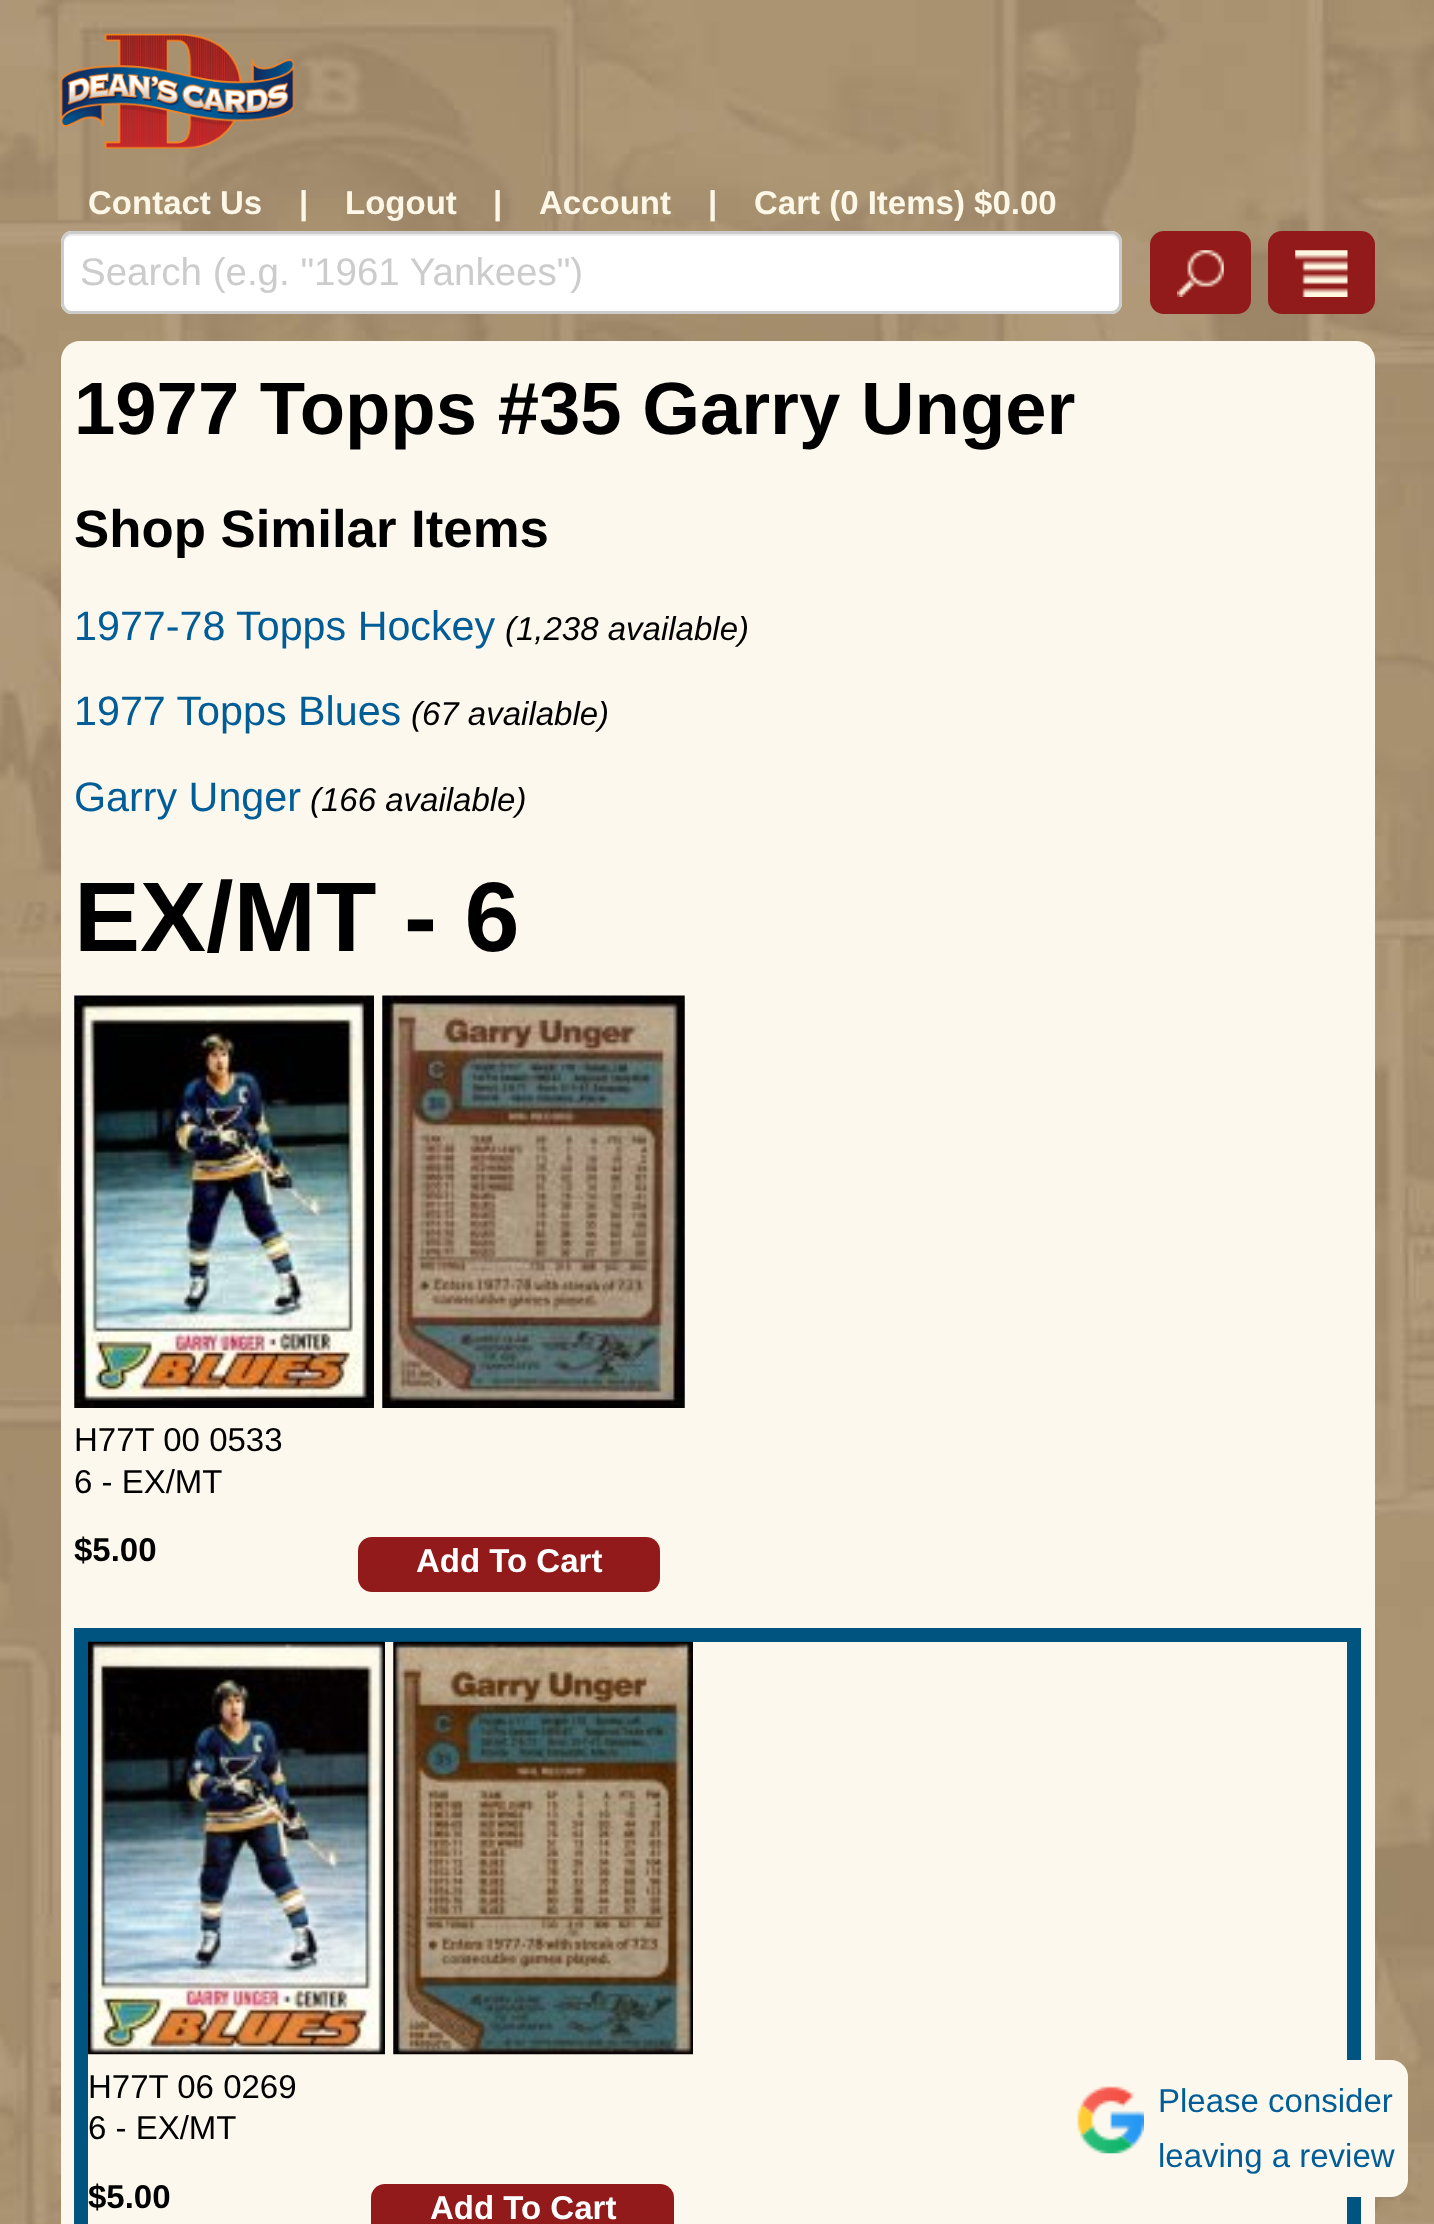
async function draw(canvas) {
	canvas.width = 1434;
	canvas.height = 2224;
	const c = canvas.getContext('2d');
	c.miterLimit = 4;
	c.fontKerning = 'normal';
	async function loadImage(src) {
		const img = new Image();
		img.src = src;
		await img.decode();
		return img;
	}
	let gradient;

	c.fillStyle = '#fff';
	c.fillRect(0, 0, 1434, 2224);
	c.drawImage(await loadImage('img1.png'), 0, 0, 1434, 2224);
	c.drawImage(await loadImage('img2.png'), 60, 33, 235, 116);
	c.font = 'bold 33px Liberation Sans';
	c.fillStyle = '#fdf7e7';
	for (const [text, x, y] of [
		['Contact Us', 88, 214],
		['|', 299, 214],
		['Logout', 345, 214],
		['|', 493, 214],
		['Account', 539, 214],
		['|', 708, 214],
		['Cart (0 Items) $0.00', 754, 214],
	]) {
		c.fillText(text, x, y);
	}
	c.fillStyle = '#fff';
	c.beginPath();
	c.roundRect(61, 231, 1061, 83, 11);
	c.fill();
	c.fillStyle = '#ececec';
	c.beginPath();
	c.moveTo(72, 236);
	c.lineTo(1111, 236);
	c.bezierCurveTo(1116, 236, 1119, 240, 1119, 245);
	c.lineTo(1119, 242);
	c.bezierCurveTo(1119, 238, 1115, 234, 1111, 234);
	c.lineTo(71, 234);
	c.bezierCurveTo(67, 234, 63, 238, 63, 242);
	c.lineTo(63, 245);
	c.bezierCurveTo(63, 240, 67, 236, 72, 236);
	c.closePath();
	c.fill();
	c.beginPath();
	c.roundRect(62.5, 232.5, 1058, 80, 9.5);
	c.strokeStyle = '#ccc';
	c.lineWidth = 3;
	c.stroke();
	c.font = '38.5px Liberation Sans';
	c.fillStyle = '#ccc';
	c.fillText('Search (e.g. "1961 Yankees")', 80, 285);
	gradient = c.createLinearGradient(1200, 231, 1200, 314);
	gradient.addColorStop(0, '#931a1a');
	gradient.addColorStop(1, '#911a1a');
	c.fillStyle = gradient;
	c.beginPath();
	c.roundRect(1150, 231, 101, 83, 14);
	c.fill();
	c.drawImage(await loadImage('img3.png'), 1177, 250, 47, 47);
	gradient = c.createLinearGradient(1321, 231, 1321, 314);
	gradient.addColorStop(0, '#931a1a');
	gradient.addColorStop(1, '#911a1a');
	c.fillStyle = gradient;
	c.beginPath();
	c.roundRect(1268, 231, 107, 83, 14);
	c.fill();
	c.drawImage(await loadImage('img4.png'), 1295, 250, 53, 47);
	c.fillStyle = '#fdf8ed';
	c.beginPath();
	c.roundRect(61, 341, 1314, 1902, 19);
	c.fill();
	c.font = 'bold 74.25px Liberation Sans';
	c.fillStyle = '#000';
	c.fillText('1977 Topps #35 Garry Unger', 74, 434);
	c.font = 'bold 52.75px Liberation Sans';
	c.fillText('Shop Similar Items', 74, 547);
	c.font = '41.25px Liberation Sans';
	c.fillStyle = '#005d97';
	c.fillText('1977-78 Topps Hockey', 74, 640);
	c.font = 'italic 33px Liberation Sans';
	c.fillStyle = '#000';
	c.fillText('(1,238 available)', 505, 640);
	c.font = '41.25px Liberation Sans';
	c.fillStyle = '#005d97';
	c.fillText('1977 Topps Blues', 74, 725);
	c.font = 'italic 33px Liberation Sans';
	c.fillStyle = '#000';
	c.fillText('(67 available)', 411, 725);
	c.font = '41.25px Liberation Sans';
	c.fillStyle = '#005d97';
	c.fillText('Garry Unger', 74, 811);
	c.font = 'italic 33px Liberation Sans';
	c.fillStyle = '#000';
	c.fillText('(166 available)', 310, 811);
	c.font = 'bold 99px Liberation Sans';
	c.fillText('EX/MT - 6', 74, 951);
	c.drawImage(await loadImage('img5.png'), 74, 995, 300, 413);
	c.drawImage(await loadImage('img6.png'), 382, 995, 303, 413);
	c.font = '33px Liberation Sans';
	c.fillText('H77T 00 0533', 74, 1451);
	c.fillText('6 - EX/MT', 74, 1493);
	c.font = 'bold 33px Liberation Sans';
	c.fillText('$5.00', 74, 1561);
	gradient = c.createLinearGradient(509, 1537, 509, 1592);
	gradient.addColorStop(0, '#931a1a');
	gradient.addColorStop(1, '#911a1a');
	c.fillStyle = gradient;
	c.beginPath();
	c.roundRect(358, 1537, 302, 55, 14);
	c.fill();
	c.fillStyle = '#fff';
	c.fillText('Add To Cart', 416, 1572);
	c.strokeStyle = '#005580';
	c.lineWidth = 14;
	c.strokeRect(81, 1635, 1273, 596);
	c.drawImage(await loadImage('img7.png'), 88, 1641, 297, 414);
	c.drawImage(await loadImage('img8.png'), 393, 1641, 300, 414);
	c.font = '33px Liberation Sans';
	c.fillStyle = '#000';
	c.fillText('H77T 06 0269', 88, 2098);
	c.fillText('6 - EX/MT', 88, 2139);
	c.font = 'bold 33px Liberation Sans';
	c.fillText('$5.00', 88, 2208);
	gradient = c.createLinearGradient(523, 2184, 523, 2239);
	gradient.addColorStop(0, '#931a1a');
	gradient.addColorStop(1, '#911a1a');
	c.fillStyle = gradient;
	c.beginPath();
	c.roundRect(371, 2184, 303, 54, 14);
	c.fill();
	c.fillStyle = '#fff';
	c.fillText('Add To Cart', 430, 2219);
	c.fillStyle = '#fdf8ed';
	c.beginPath();
	c.roundRect(1064, 2060, 344, 137, 17);
	c.fill();
	c.drawImage(await loadImage('img9.png'), 1077, 2086, 67, 68);
	c.font = '33px Liberation Sans';
	c.fillStyle = '#005d97';
	c.fillText('Please consider', 1158, 2112);
	c.fillText('leaving a review', 1158, 2167);
}

draw(document.querySelector('canvas'));
